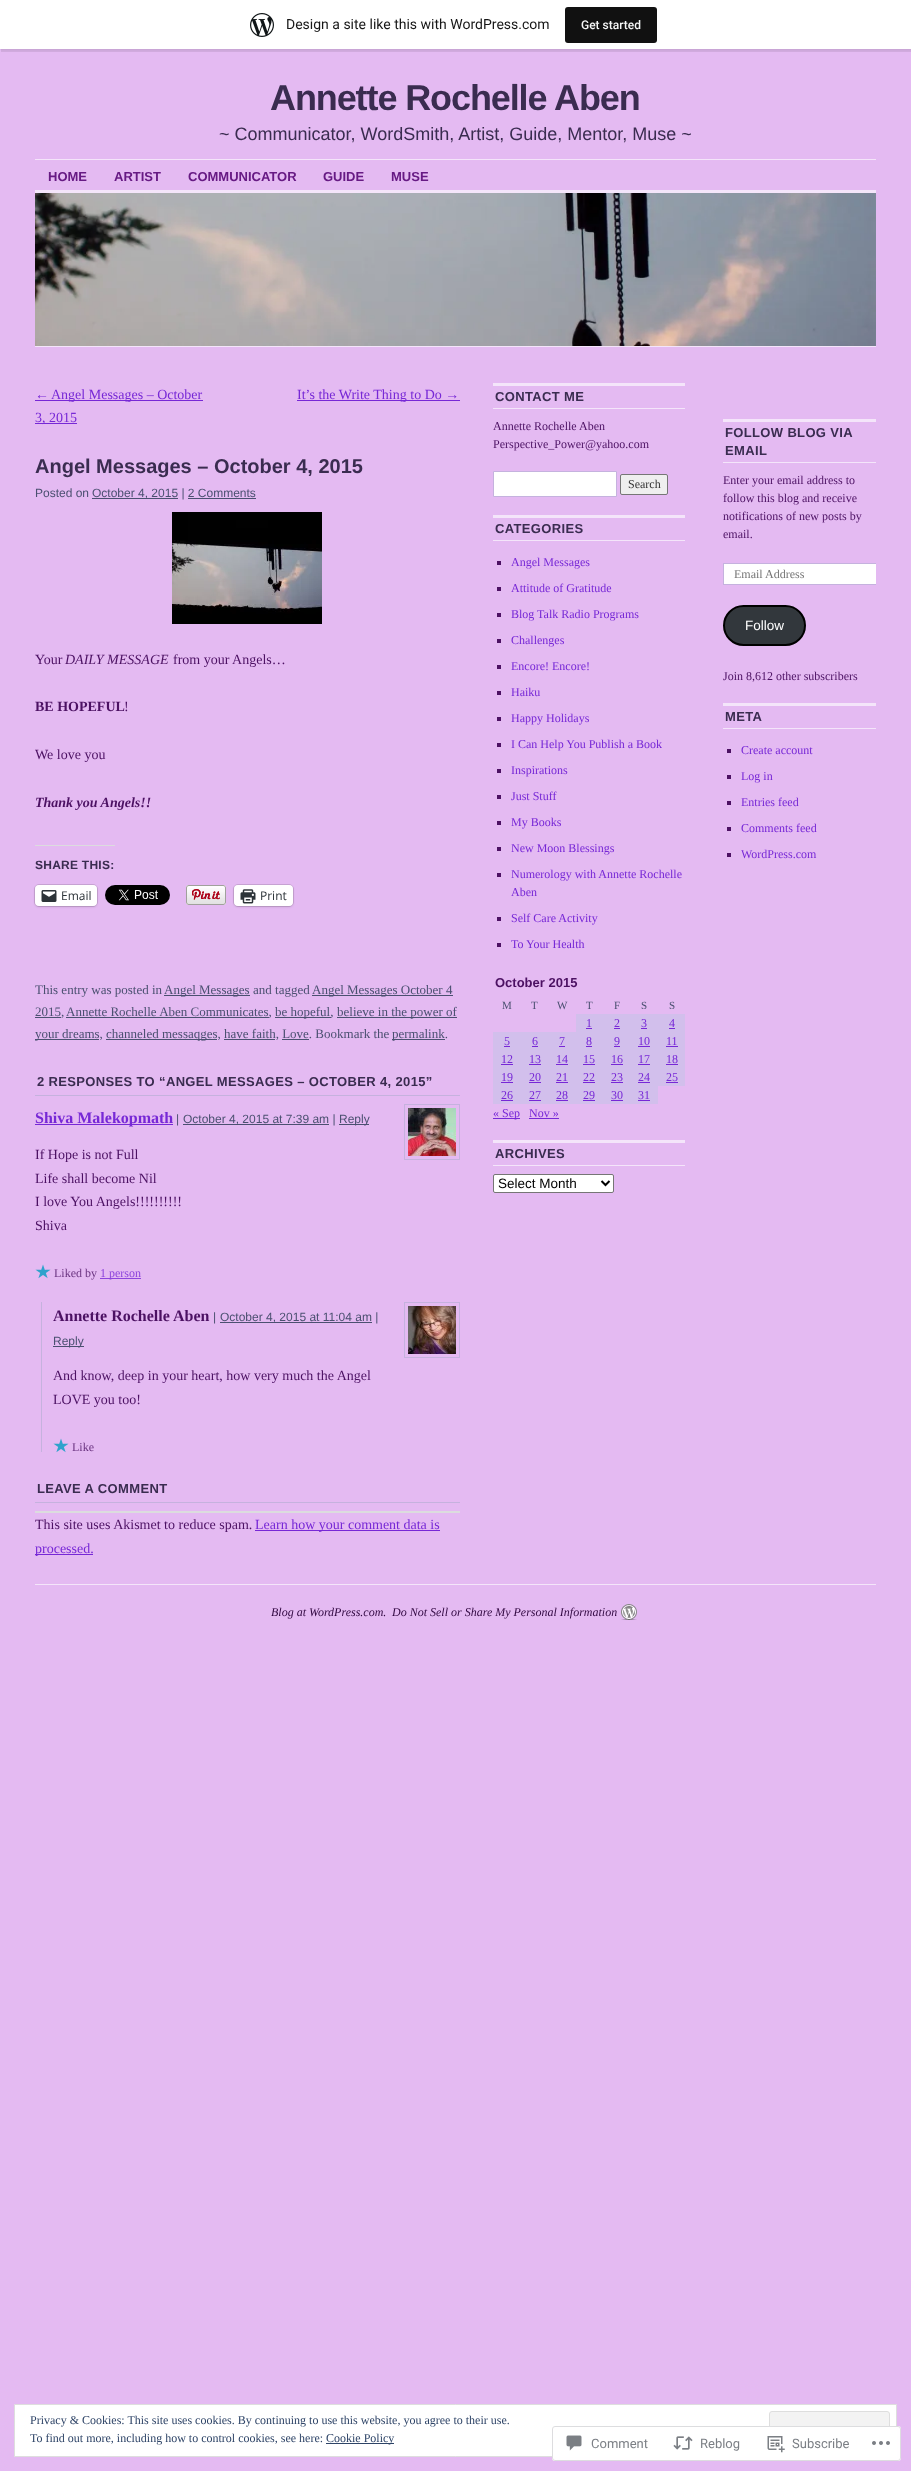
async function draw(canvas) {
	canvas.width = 911;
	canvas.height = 2471;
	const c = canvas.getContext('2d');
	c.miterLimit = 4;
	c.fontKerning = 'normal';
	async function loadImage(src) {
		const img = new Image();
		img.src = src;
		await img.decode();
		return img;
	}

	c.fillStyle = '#e4baf2';
	c.fillRect(0, 0, 911, 2471);
	c.fillStyle = '#0000000d';
	c.filter = 'blur(1px)';
	c.beginPath();
	c.rect(0, 1, 911, 49);
	c.fill();
	c.filter = 'none';
	c.fillStyle = '#00000014';
	c.beginPath();
	c.moveTo(1, 49);
	c.lineTo(1, 52);
	c.lineTo(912, 52);
	c.lineTo(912, 3);
	c.lineTo(911, 3);
	c.lineTo(911, 49);
	c.closePath();
	c.fill();
	c.fillStyle = '#fff';
	c.fillRect(0, 0, 911, 49);
	c.drawImage(await loadImage('img1.png'), 250, 13, 24, 24);
	c.font = '14px Roboto';
	c.fillStyle = '#171717';
	c.fillText('Design a site like this with WordPress.com', 286, 29);
	c.fillStyle = '#111';
	c.beginPath();
	c.roundRect(565, 7, 92, 36, 3);
	c.fill();
	c.font = '500 12px Roboto';
	c.fillStyle = '#f6f7f7';
	c.fillText('Get started', 581, 29);
	c.letterSpacing = '-1.1px';
	c.font = 'bold 36px Liberation Sans';
	c.fillStyle = '#3a2c50';
	c.fillText('Annette Rochelle Aben', 270, 110);
	c.letterSpacing = '0px';
	c.font = '18px Liberation Sans';
	c.fillText('~ Communicator, WordSmith, Artist, Guide, Mentor, Muse ~', 219, 140);
	c.fillStyle = '#f4e5fa';
	c.fillRect(35, 159, 841, 1);
	c.font = 'bold 13px Liberation Sans';
	c.fillStyle = '#671a84';
	for (const [text, x, y] of [
		['HOME', 48, 181],
		['ARTIST', 114, 181],
		['COMMUNICATOR', 188, 181],
		['GUIDE', 323, 181],
		['MUSE', 391, 181],
	]) {
		c.fillText(text, x, y);
	}
	c.fillStyle = '#f4e5fa';
	c.fillRect(35, 190, 841, 3);
	c.drawImage(await loadImage('img2.png'), 35, 193, 841, 153);
	c.fillRect(35, 346, 841, 1);
	c.font = '14px Liberation Serif';
	c.fillStyle = '#7728d6';
	c.fillText('←', 35, 399);
	c.fillRect(35, 400, 168, 1);
	c.fillText('Angel Messages – October', 51, 399);
	c.fillRect(35, 423, 42, 1);
	c.fillText('3, 2015', 35, 422);
	c.fillRect(297, 400, 163, 1);
	c.fillText('It’s the Write Thing to Do →', 297, 399);
	c.font = 'bold 20px Liberation Sans';
	c.fillStyle = '#3a2c50';
	c.fillText('Angel Messages – October 4, 2015', 35, 473);
	c.font = '12px Liberation Sans';
	c.fillStyle = '#4b5071';
	c.fillText('Posted on', 35, 497);
	c.fillRect(92, 498, 86, 1);
	c.fillText('October 4, 2015 | 2 Comments', 92, 497);
	c.fillRect(188, 498, 68, 1);
	c.drawImage(await loadImage('img3.png'), 172, 512, 150, 112);
	c.font = '14px Liberation Serif';
	c.fillStyle = '#4c1163';
	c.fillText('Your', 35, 664);
	c.font = 'italic 14px Liberation Serif';
	c.fillText('DAILY MESSAGE', 65, 664);
	c.font = '14px Liberation Serif';
	c.fillText('from your Angels…', 173, 664);
	c.font = 'bold 14px Liberation Serif';
	c.fillText('BE HOPEFUL', 35, 711);
	c.font = '14px Liberation Serif';
	c.fillText('!', 124, 711);
	c.fillText('We love you', 35, 759);
	c.font = 'italic bold 14px Liberation Serif';
	c.fillText('Thank you Angels!!', 35, 807);
	c.fillStyle = '#dcdcde';
	c.fillRect(35, 845, 80, 1);
	c.letterSpacing = '0.25px';
	c.font = 'bold 12px Liberation Sans';
	c.fillStyle = '#3a2c50';
	c.fillText('SHARE THIS:', 35, 869);
	c.beginPath();
	c.roundRect(34.5, 884.5, 63, 22, 4.5);
	c.strokeStyle = '#c9a4d5';
	c.stroke();
	c.fillStyle = '#0000001f';
	c.filter = 'blur(1px)';
	c.beginPath();
	c.roundRect(35, 886, 62, 21, 4);
	c.fill();
	c.filter = 'none';
	c.fillStyle = '#fff';
	c.beginPath();
	c.roundRect(35, 885, 62, 21, 4);
	c.fill();
	c.drawImage(await loadImage('img4.png'), 41, 890, 16, 12);
	c.letterSpacing = '0px';
	c.font = '12px Open Sans';
	c.fillStyle = '#2c3338';
	c.fillText('Email', 61, 900);
	c.drawImage(await loadImage('img5.png'), 105, 885, 65, 20);
	c.drawImage(await loadImage('img6.png'), 186, 885, 40, 20);
	c.beginPath();
	c.roundRect(233.5, 884.5, 60, 22, 4.5);
	c.stroke();
	c.fillStyle = '#0000001f';
	c.filter = 'blur(1px)';
	c.beginPath();
	c.roundRect(234, 886, 59, 21, 4);
	c.fill();
	c.filter = 'none';
	c.fillStyle = '#fff';
	c.beginPath();
	c.roundRect(234, 885, 59, 21, 4);
	c.fill();
	c.drawImage(await loadImage('img7.png'), 240, 889, 16, 15);
	c.fillStyle = '#2c3338';
	c.fillText('Print', 260, 900);
	c.font = '13px Liberation Serif';
	c.fillStyle = '#4b5071';
	c.fillText('This entry was posted in', 35, 994);
	c.fillRect(164, 995, 86, 1);
	c.fillText('Angel Messages', 164, 994);
	c.fillText('and tagged', 253, 994);
	c.fillRect(312, 995, 141, 1);
	c.fillText('Angel Messages October 4', 312, 994);
	c.fillRect(35, 1017, 26, 1);
	c.fillText('2015,', 35, 1016);
	c.fillRect(66, 1017, 203, 1);
	c.fillText('Annette Rochelle Aben Communicates,', 66, 1016);
	c.fillRect(275, 1017, 56, 1);
	c.fillText('be hopeful,', 275, 1016);
	c.fillRect(337, 1017, 120, 1);
	c.fillText('believe in the power of', 337, 1016);
	c.fillRect(35, 1039, 64, 1);
	c.fillText('your dreams,', 35, 1038);
	c.fillRect(106, 1039, 111, 1);
	c.fillText('channeled messaqges, have faith, Love. Bookmark the', 106, 1038);
	c.fillRect(392, 1039, 53, 1);
	c.fillText('permalink.', 392, 1038);
	for (const [x, y, w, h, color] of [
		[224, 1039, 51, 1, '#4b5071'],
		[282, 1039, 27, 1, '#4b5071'],
		[35, 1095, 425, 1, '#c5b2de'],
	]) {
		c.fillStyle = color;
		c.fillRect(x, y, w, h);
	}
	c.letterSpacing = '0.35px';
	c.font = 'bold 13px Liberation Sans';
	c.fillStyle = '#3a2c50';
	c.fillText('2 RESPONSES TO “ANGEL MESSAGES – OCTOBER 4, 2015”', 37, 1086);
	c.fillStyle = '#7728d6';
	c.fillRect(35, 1124, 138, 1);
	c.letterSpacing = '0px';
	c.font = 'bold 16px Liberation Serif';
	c.fillText('Shiva Malekopmath', 35, 1123);
	c.font = '12px Liberation Sans';
	c.fillStyle = '#4b5071';
	c.fillText('|', 176, 1123);
	c.fillRect(183, 1124, 146, 1);
	c.fillText('October 4, 2015 at 7:39 am |', 183, 1123);
	c.fillRect(339, 1124, 30, 1);
	c.fillText('Reply', 339, 1123);
	c.strokeStyle = '#c5b2de';
	c.strokeRect(404.5, 1104.5, 55, 55);
	c.drawImage(await loadImage('img8.png'), 408, 1108, 48, 48);
	c.font = '14px Liberation Serif';
	c.fillStyle = '#4c1163';
	for (const [text, x, y] of [
		['If Hope is not Full', 35, 1159],
		['Life shall become Nil', 35, 1183],
		['I love You Angels!!!!!!!!!!', 35, 1206],
		['Shiva', 35, 1230],
	]) {
		c.fillText(text, x, y);
	}
	c.drawImage(await loadImage('img9.png'), 35, 1264, 16, 15);
	c.font = '12px Liberation Serif';
	c.fillStyle = '#6a3380';
	c.fillText('Liked by', 54, 1277);
	c.fillStyle = '#8d45dc';
	c.fillRect(100, 1278, 41, 1);
	c.fillText('1 person', 100, 1277);
	c.fillStyle = '#c5b2de';
	c.fillRect(41, 1302, 1, 150);
	c.font = 'bold 16px Liberation Serif';
	c.fillStyle = '#4c1163';
	c.fillText('Annette Rochelle Aben', 53, 1321);
	c.font = '12px Liberation Sans';
	c.fillStyle = '#4b5071';
	c.fillText('|', 213, 1321);
	c.fillRect(220, 1322, 152, 1);
	c.fillText('October 4, 2015 at 11:04 am |', 220, 1321);
	c.strokeRect(404.5, 1302.5, 55, 55);
	c.drawImage(await loadImage('img10.png'), 408, 1306, 48, 48);
	c.fillRect(53, 1346, 31, 1);
	c.fillText('Reply', 53, 1345);
	c.font = '14px Liberation Serif';
	c.fillStyle = '#4c1163';
	c.fillText('And know, deep in your heart, how very much the Angel', 53, 1380);
	c.fillText('LOVE you too!', 53, 1404);
	c.drawImage(await loadImage('img9.png'), 53, 1438, 16, 15);
	c.font = '12px Liberation Serif';
	c.fillStyle = '#6a3380';
	c.fillText('Like', 72, 1451);
	c.fillStyle = '#c5b2de';
	c.fillRect(35, 1502, 425, 1);
	c.letterSpacing = '0.35px';
	c.font = 'bold 13px Liberation Sans';
	c.fillStyle = '#3a2c50';
	c.fillText('LEAVE A COMMENT', 37, 1493);
	c.fillStyle = '#dcdcde';
	c.fillRect(35, 1511, 425, 2);
	c.letterSpacing = '0px';
	c.font = '14px Liberation Serif';
	c.fillStyle = '#4c1163';
	c.fillText('This site uses Akismet to reduce spam.', 35, 1529);
	c.fillStyle = '#7728d6';
	c.fillRect(255, 1530, 185, 1);
	c.fillText('Learn how your comment data is', 255, 1529);
	c.fillRect(35, 1554, 58, 1);
	c.fillText('processed.', 35, 1553);
	c.fillStyle = '#f4e5fa';
	c.fillRect(493, 383, 192, 3);
	c.fillRect(493, 408, 192, 1);
	c.letterSpacing = '0.35px';
	c.font = 'bold 13px Liberation Sans';
	c.fillStyle = '#3a2c50';
	c.fillText('CONTACT ME', 495, 401);
	c.letterSpacing = '0px';
	c.font = '12px Liberation Serif';
	c.fillStyle = '#4c1163';
	c.fillText('Annette Rochelle Aben', 493, 430);
	c.fillText('Perspective_Power@yahoo.com', 493, 448);
	c.fillStyle = '#fff';
	c.beginPath();
	c.rect(493.5, 471.5, 123, 25);
	c.fill();
	c.stroke();
	c.fillStyle = '#efefef';
	c.beginPath();
	c.roundRect(620.5, 474.5, 47, 20, 1.5);
	c.fill();
	c.strokeStyle = '#767676';
	c.stroke();
	c.fillStyle = '#333';
	c.fillText('Search', 628, 488);
	c.fillStyle = '#f4e5fa';
	c.fillRect(493, 515, 192, 3);
	c.fillRect(493, 540, 192, 1);
	c.letterSpacing = '0.35px';
	c.font = 'bold 13px Liberation Sans';
	c.fillStyle = '#3a2c50';
	c.fillText('CATEGORIES', 495, 533);
	c.fillStyle = '#4c1163';
	c.fillRect(497, 561, 4, 4);
	c.letterSpacing = '0px';
	c.font = '12px Liberation Serif';
	c.fillStyle = '#7728d6';
	c.fillText('Angel Messages', 511, 566);
	c.fillStyle = '#4c1163';
	c.fillRect(497, 587, 4, 4);
	c.fillStyle = '#7728d6';
	c.fillText('Attitude of Gratitude', 511, 592);
	c.fillStyle = '#4c1163';
	c.fillRect(497, 613, 4, 4);
	c.fillStyle = '#7728d6';
	c.fillText('Blog Talk Radio Programs', 511, 618);
	c.fillStyle = '#4c1163';
	c.fillRect(497, 639, 4, 4);
	c.fillStyle = '#7728d6';
	c.fillText('Challenges', 511, 644);
	c.fillStyle = '#4c1163';
	c.fillRect(497, 665, 4, 4);
	c.fillStyle = '#7728d6';
	c.fillText('Encore! Encore!', 511, 670);
	c.fillStyle = '#4c1163';
	c.fillRect(497, 691, 4, 4);
	c.fillStyle = '#7728d6';
	c.fillText('Haiku', 511, 696);
	c.fillStyle = '#4c1163';
	c.fillRect(497, 717, 4, 4);
	c.fillStyle = '#7728d6';
	c.fillText('Happy Holidays', 511, 722);
	c.fillStyle = '#4c1163';
	c.fillRect(497, 743, 4, 4);
	c.fillStyle = '#7728d6';
	c.fillText('I Can Help You Publish a Book', 511, 748);
	c.fillStyle = '#4c1163';
	c.fillRect(497, 769, 4, 4);
	c.fillStyle = '#7728d6';
	c.fillText('Inspirations', 511, 774);
	c.fillStyle = '#4c1163';
	c.fillRect(497, 795, 4, 4);
	c.fillStyle = '#7728d6';
	c.fillText('Just Stuff', 511, 800);
	c.fillStyle = '#4c1163';
	c.fillRect(497, 821, 4, 4);
	c.fillStyle = '#7728d6';
	c.fillText('My Books', 511, 826);
	c.fillStyle = '#4c1163';
	c.fillRect(497, 847, 4, 4);
	c.fillStyle = '#7728d6';
	c.fillText('New Moon Blessings', 511, 852);
	c.fillStyle = '#4c1163';
	c.fillRect(497, 873, 4, 4);
	c.fillStyle = '#7728d6';
	c.fillText('Numerology with Annette Rochelle', 511, 878);
	c.fillText('Aben', 511, 896);
	c.fillStyle = '#4c1163';
	c.fillRect(497, 917, 4, 4);
	c.fillStyle = '#7728d6';
	c.fillText('Self Care Activity', 511, 922);
	c.fillStyle = '#4c1163';
	c.fillRect(497, 943, 4, 4);
	c.fillStyle = '#7728d6';
	c.fillText('To Your Health', 511, 948);
	c.font = 'bold 13px Liberation Sans';
	c.fillStyle = '#4c1163';
	c.fillText('October 2015', 495, 987);
	c.font = '11px Liberation Serif';
	c.fillStyle = '#4b5071';
	for (const [text, x, y] of [
		['M', 502, 1009],
		['T', 531, 1009],
		['W', 557, 1009],
		['T', 586, 1009],
		['F', 614, 1009],
		['S', 641, 1009],
		['S', 669, 1009],
	]) {
		c.fillText(text, x, y);
	}
	c.fillStyle = '#d2bfec';
	c.fillRect(576, 1014, 109, 18);
	c.font = '12px Liberation Serif';
	c.fillStyle = '#7728d6';
	c.fillText('1', 586, 1027);
	c.fillRect(586, 1028, 6, 1);
	c.fillText('2', 614, 1027);
	c.fillRect(614, 1028, 6, 1);
	c.fillText('3', 641, 1027);
	c.fillRect(641, 1028, 6, 1);
	c.fillText('4', 669, 1027);
	c.fillRect(669, 1028, 6, 1);
	c.fillStyle = '#d2bfec';
	c.fillRect(493, 1032, 192, 18);
	c.fillStyle = '#7728d6';
	c.fillText('5', 504, 1045);
	c.fillRect(504, 1046, 6, 1);
	c.fillText('6', 532, 1045);
	c.fillRect(532, 1046, 6, 1);
	c.fillText('7', 559, 1045);
	c.fillRect(559, 1046, 6, 1);
	c.fillText('8', 586, 1045);
	c.fillRect(586, 1046, 6, 1);
	c.fillText('9', 614, 1045);
	c.fillRect(614, 1046, 6, 1);
	c.fillText('10', 638, 1045);
	c.fillRect(638, 1046, 12, 1);
	c.fillText('11', 666, 1045);
	c.fillRect(666, 1046, 12, 1);
	c.fillStyle = '#d2bfec';
	c.fillRect(493, 1050, 192, 18);
	c.fillStyle = '#7728d6';
	c.fillText('12', 501, 1063);
	c.fillRect(501, 1064, 12, 1);
	c.fillText('13', 529, 1063);
	c.fillRect(529, 1064, 12, 1);
	c.fillText('14', 556, 1063);
	c.fillRect(556, 1064, 12, 1);
	c.fillText('15', 583, 1063);
	c.fillRect(583, 1064, 12, 1);
	c.fillText('16', 611, 1063);
	c.fillRect(611, 1064, 12, 1);
	c.fillText('17', 638, 1063);
	c.fillRect(638, 1064, 12, 1);
	c.fillText('18', 666, 1063);
	c.fillRect(666, 1064, 12, 1);
	c.fillStyle = '#d2bfec';
	c.fillRect(493, 1068, 192, 18);
	c.fillStyle = '#7728d6';
	c.fillText('19', 501, 1081);
	c.fillRect(501, 1082, 12, 1);
	c.fillText('20', 529, 1081);
	c.fillRect(529, 1082, 12, 1);
	c.fillText('21', 556, 1081);
	c.fillRect(556, 1082, 12, 1);
	c.fillText('22', 583, 1081);
	c.fillRect(583, 1082, 12, 1);
	c.fillText('23', 611, 1081);
	c.fillRect(611, 1082, 12, 1);
	c.fillText('24', 638, 1081);
	c.fillRect(638, 1082, 12, 1);
	c.fillText('25', 666, 1081);
	c.fillRect(666, 1082, 12, 1);
	c.fillStyle = '#d2bfec';
	c.fillRect(493, 1086, 165, 18);
	c.fillStyle = '#7728d6';
	c.fillText('26', 501, 1099);
	c.fillRect(501, 1100, 12, 1);
	c.fillText('27', 529, 1099);
	c.fillRect(529, 1100, 12, 1);
	c.fillText('28', 556, 1099);
	c.fillRect(556, 1100, 12, 1);
	c.fillText('29', 583, 1099);
	c.fillRect(583, 1100, 12, 1);
	c.fillText('30', 611, 1099);
	c.fillRect(611, 1100, 12, 1);
	c.fillText('31', 638, 1099);
	c.fillRect(638, 1100, 12, 1);
	c.fillRect(493, 1118, 27, 1);
	c.fillText('« Sep', 493, 1117);
	c.fillText('Nov »', 529, 1117);
	for (const [x, y, w, h, color] of [
		[529, 1118, 30, 1, '#7728d6'],
		[493, 1140, 192, 3, '#f4e5fa'],
		[493, 1165, 192, 1, '#f4e5fa'],
	]) {
		c.fillStyle = color;
		c.fillRect(x, y, w, h);
	}
	c.letterSpacing = '0.35px';
	c.font = 'bold 13px Liberation Sans';
	c.fillStyle = '#3a2c50';
	c.fillText('ARCHIVES', 495, 1158);
	c.fillStyle = '#fff';
	c.beginPath();
	c.roundRect(493.5, 1174.5, 120, 18, 1.5);
	c.fill();
	c.stroke();
	c.beginPath();
	c.moveTo(601.5, 1181);
	c.lineTo(605.5, 1185);
	c.lineTo(609.5, 1181);
	c.strokeStyle = '#000';
	c.lineWidth = 2;
	c.stroke();
	c.letterSpacing = '0px';
	c.font = '13.5px Liberation Sans';
	c.fillStyle = '#000';
	c.fillText('Select Month', 498, 1188);
	c.fillStyle = '#f4e5fa';
	c.fillRect(723, 419, 153, 3);
	c.fillRect(723, 462, 153, 1);
	c.letterSpacing = '0.35px';
	c.font = 'bold 13px Liberation Sans';
	c.fillStyle = '#3a2c50';
	c.fillText('FOLLOW BLOG VIA', 725, 437);
	c.fillText('EMAIL', 725, 455);
	c.letterSpacing = '0px';
	c.font = '12px Liberation Serif';
	c.fillStyle = '#4c1163';
	for (const [text, x, y] of [
		['Enter your email address to', 723, 484],
		['follow this blog and receive', 723, 502],
		['notifications of new posts by', 723, 520],
		['email.', 723, 538],
	]) {
		c.fillText(text, x, y);
	}
	c.fillStyle = '#fff';
	c.fillRect(724, 564, 152, 20);
	c.save();
	c.beginPath();
	c.rect(723, 383, 153, 502);
	c.clip();
	c.strokeStyle = '#c5b2de';
	c.lineWidth = 1;
	c.strokeRect(723.5, 563.5, 166, 21);
	c.restore();
	c.fillStyle = '#757575';
	c.fillText('Email Address', 734, 578);
	c.fillStyle = '#32373c';
	c.beginPath();
	c.roundRect(724, 606, 81, 39, 19.5);
	c.fill();
	c.stroke();
	c.font = '13.5px Liberation Sans';
	c.fillStyle = '#fff';
	c.fillText('Follow', 745, 630);
	c.font = '12px Liberation Serif';
	c.fillStyle = '#4c1163';
	c.fillText('Join 8,612 other subscribers', 723, 680);
	c.fillStyle = '#f4e5fa';
	c.fillRect(723, 703, 153, 3);
	c.fillRect(723, 728, 153, 1);
	c.letterSpacing = '0.35px';
	c.font = 'bold 13px Liberation Sans';
	c.fillStyle = '#3a2c50';
	c.fillText('META', 725, 721);
	c.fillStyle = '#4c1163';
	c.fillRect(727, 749, 4, 4);
	c.letterSpacing = '0px';
	c.font = '12px Liberation Serif';
	c.fillStyle = '#7728d6';
	c.fillText('Create account', 741, 754);
	c.fillStyle = '#4c1163';
	c.fillRect(727, 775, 4, 4);
	c.fillStyle = '#7728d6';
	c.fillText('Log in', 741, 780);
	c.fillStyle = '#4c1163';
	c.fillRect(727, 801, 4, 4);
	c.fillStyle = '#7728d6';
	c.fillText('Entries feed', 741, 806);
	c.fillStyle = '#4c1163';
	c.fillRect(727, 827, 4, 4);
	c.fillStyle = '#7728d6';
	c.fillText('Comments feed', 741, 832);
	c.fillStyle = '#4c1163';
	c.fillRect(727, 853, 4, 4);
	c.fillStyle = '#7728d6';
	c.fillText('WordPress.com', 741, 858);
	c.fillStyle = '#f4e5fa';
	c.fillRect(35, 1584, 841, 1);
	c.drawImage(await loadImage('img11.png'), 621, 1604, 16, 16);
	c.font = 'italic 12px Liberation Serif';
	c.fillStyle = '#320942';
	c.fillText('Blog at WordPress.com.', 271, 1616);
	c.fillText('Do Not Sell or Share My Personal Information', 392, 1616);
	c.fillStyle = '#fff';
	c.beginPath();
	c.rect(14.5, 2404.5, 882, 52);
	c.fill();
	c.strokeStyle = '#dedede';
	c.lineWidth = 1;
	c.stroke();
	c.font = '12px Liberation Serif';
	c.fillStyle = '#2e4467';
	c.fillText('Privacy & Cookies: This site uses cookies. By continuing to use this website, you agree to their use.', 30, 2424);
	c.fillStyle = '#f3f3f3';
	c.beginPath();
	c.roundRect(769.5, 2411.5, 120, 38, 2.5);
	c.fill();
	c.stroke();
	c.fillStyle = '#2e4467';
	c.fillText('To find out more, including how to control cookies, see here:', 30, 2442);
	c.fillRect(326, 2443, 68, 1);
	c.fillText('Cookie Policy', 326, 2442);
	c.fillStyle = '#fffffffa';
	c.beginPath();
	c.roundRect(552, 2426, 349, 35, 3);
	c.fill();
	c.beginPath();
	c.roundRect(552.5, 2426.5, 348, 34, 2.5);
	c.strokeStyle = '#dcdcdefa';
	c.stroke();
	c.drawImage(await loadImage('img12.png'), 566, 2435, 16, 16);
	c.font = '13px Roboto';
	c.fillStyle = '#7b7f85';
	c.fillText('Comment', 591, 2448);
	c.drawImage(await loadImage('img13.png'), 673, 2436, 20, 14);
	c.fillText('Reblog', 700, 2448);
	c.drawImage(await loadImage('img14.png'), 767, 2436, 18, 17);
	c.fillText('Subscribe', 792, 2448);
	c.drawImage(await loadImage('img15.png'), 872, 2441, 18, 4);
}

draw(document.querySelector('canvas'));
